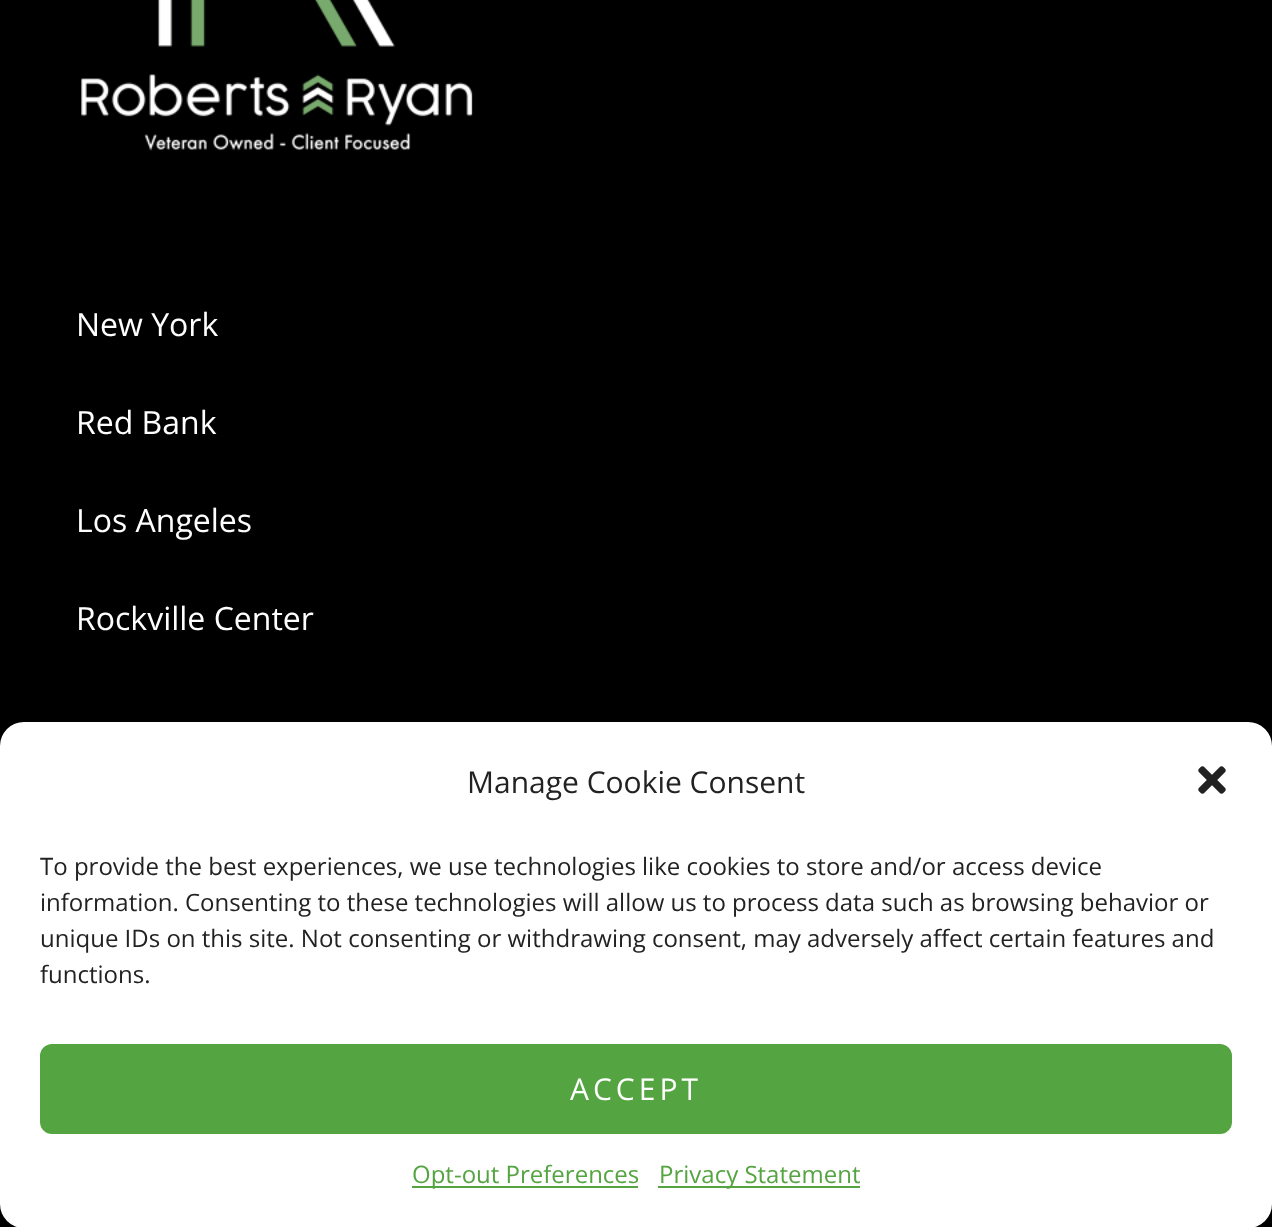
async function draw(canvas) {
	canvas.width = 1272;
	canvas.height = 1227;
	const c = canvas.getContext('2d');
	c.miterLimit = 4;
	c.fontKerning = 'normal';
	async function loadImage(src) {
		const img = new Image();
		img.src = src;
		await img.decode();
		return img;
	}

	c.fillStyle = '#000';
	c.fillRect(0, 0, 1272, 1227);
	c.drawImage(await loadImage('img1.png'), 81, 0, 392, 151);
	c.font = '32px Open Sans';
	c.fillStyle = '#fff';
	for (const [text, x, y] of [
		['New York', 76, 336],
		['Red Bank', 76, 434],
		['Los Angeles', 76, 532],
		['Rockville Center', 76, 630],
	]) {
		c.fillText(text, x, y);
	}
	c.beginPath();
	c.roundRect(0, 722, 1272, 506, 24);
	c.fill();
	c.font = '30px Open Sans';
	c.fillStyle = '#222';
	c.fillText('Manage Cookie Consent', 467, 793);
	c.drawImage(await loadImage('img2.png'), 1198, 766, 28, 28);
	c.font = '24px Open Sans';
	for (const [text, x, y] of [
		['To provide the best experiences, we use technologies like cookies to store and/or access device', 40, 875],
		['information. Consenting to these technologies will allow us to process data such as browsing behavior or', 40, 911],
		['unique IDs on this site. Not consenting or withdrawing consent, may adversely affect certain features and', 40, 947],
		['functions.', 40, 983],
	]) {
		c.fillText(text, x, y);
	}
	c.fillStyle = '#54a441';
	c.beginPath();
	c.roundRect(41, 1045, 1190, 88, 11);
	c.fill();
	c.strokeStyle = '#54a441';
	c.lineWidth = 2;
	c.stroke();
	c.letterSpacing = '4px';
	c.font = '30px Open Sans';
	c.fillStyle = '#fff';
	c.fillText('ACCEPT', 570, 1100);
	c.fillStyle = '#54a441';
	c.fillRect(412, 1186, 226, 2);
	c.letterSpacing = '0px';
	c.font = '24px Open Sans';
	c.fillText('Opt-out Preferences', 412, 1183);
	c.fillRect(658, 1186, 202, 2);
	c.fillText('Privacy Statement', 659, 1183);
}

draw(document.querySelector('canvas'));
